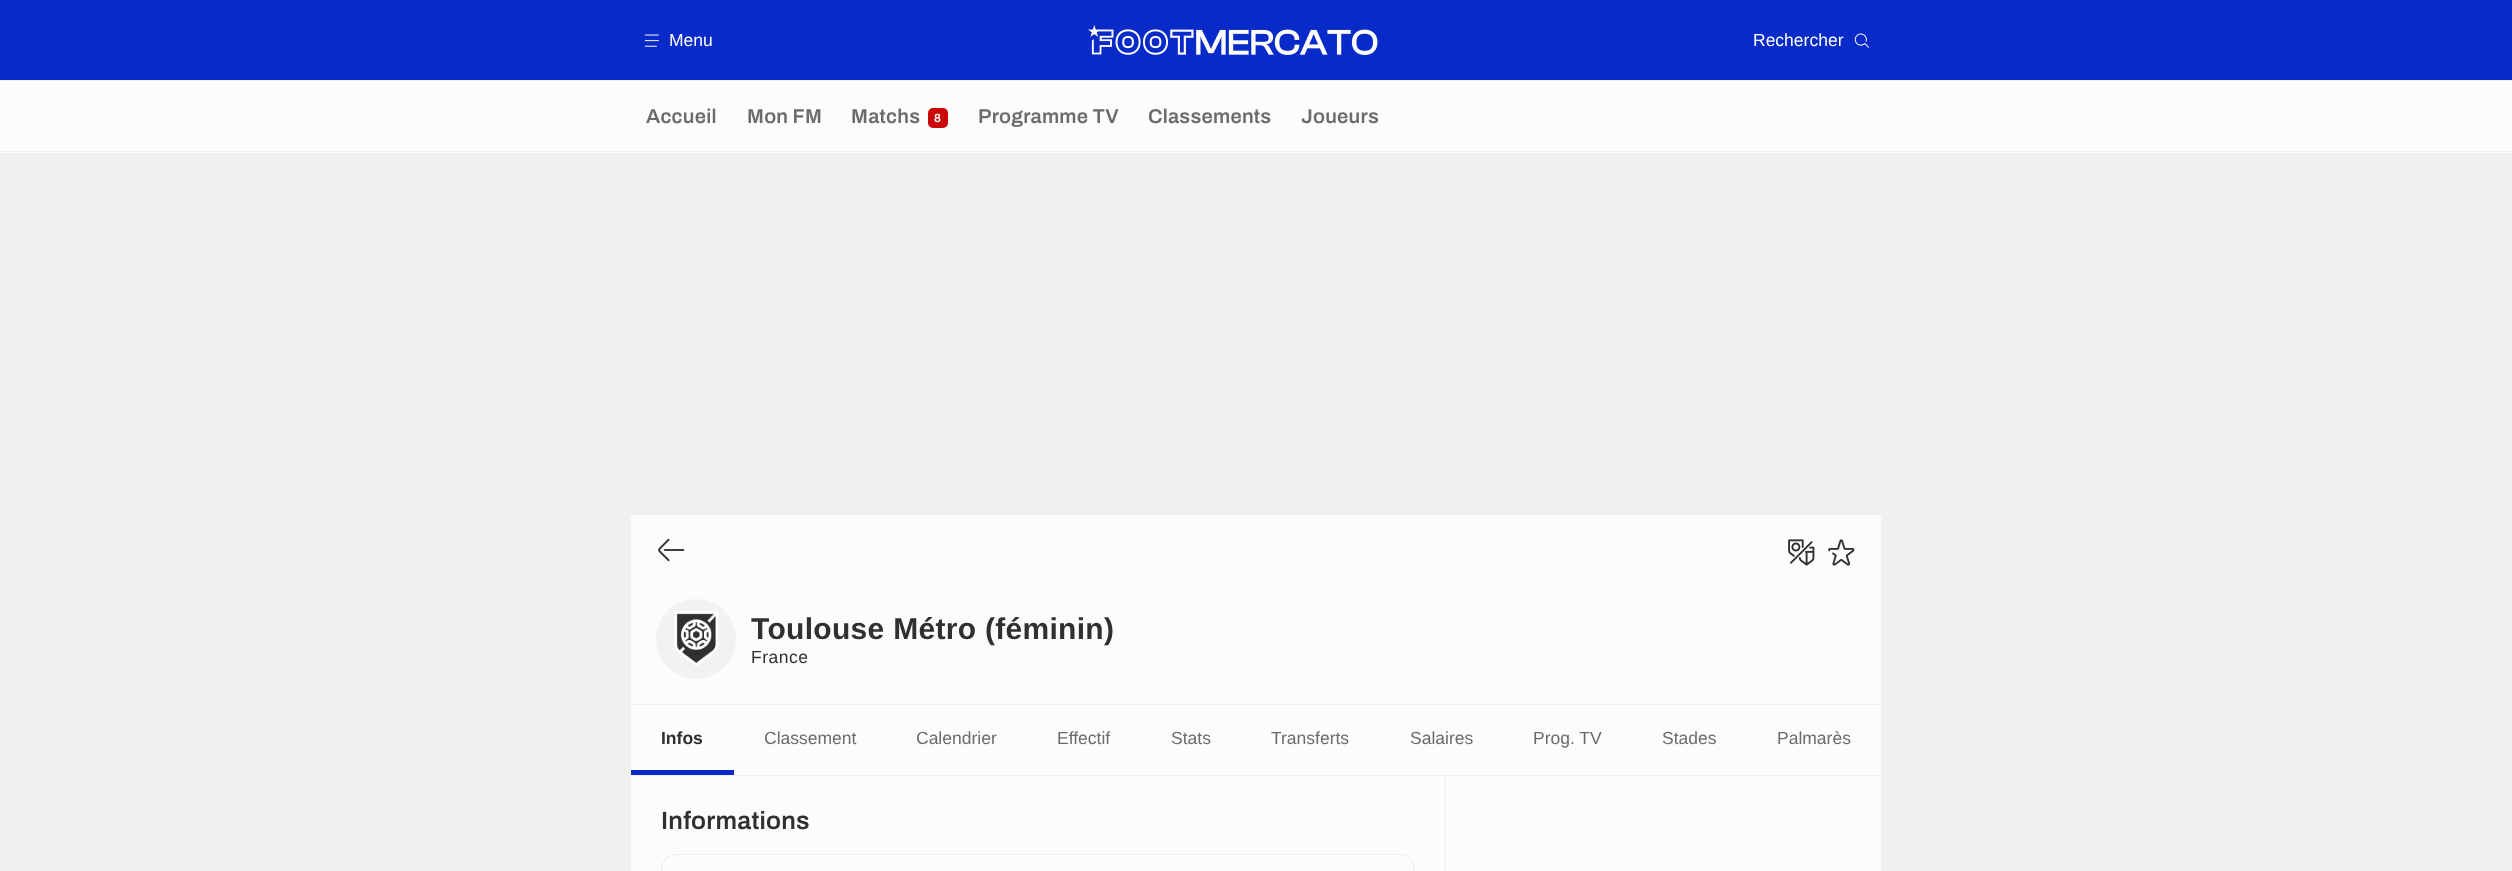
async function draw(canvas) {
	canvas.width = 2512;
	canvas.height = 871;
	const c = canvas.getContext('2d');
	c.miterLimit = 4;
	c.fontKerning = 'normal';
	async function loadImage(src) {
		const img = new Image();
		img.src = src;
		await img.decode();
		return img;
	}

	c.fillStyle = '#f0f0ef';
	c.fillRect(0, 0, 2512, 871);
	c.fillStyle = '#072ac8';
	c.fillRect(0, 0, 2512, 80);
	c.drawImage(await loadImage('img1.png'), 644, 34, 15, 13);
	c.font = '17.5px Liberation Sans';
	c.fillStyle = '#fefcfb';
	c.fillText('Menu', 669, 46);
	c.drawImage(await loadImage('img2.png'), 1088, 25, 290, 30);
	c.fillText('Rechercher', 1753, 46);
	c.drawImage(await loadImage('img3.png'), 1854, 33, 15, 15);
	c.fillRect(0, 81, 2512, 72);
	c.fillStyle = '#f0f0ef';
	c.fillRect(0, 151, 2512, 1);
	c.letterSpacing = '0.25px';
	c.font = '600 20px Archivo';
	c.fillStyle = '#6b6b6b';
	for (const [text, x, y] of [
		['Accueil', 646, 123],
		['Mon FM', 747, 123],
		['Matchs', 851, 123],
	]) {
		c.fillText(text, x, y);
	}
	c.fillStyle = '#ca0709';
	c.beginPath();
	c.roundRect(928, 108, 20, 20, 5);
	c.fill();
	c.font = '600 12px Archivo';
	c.fillStyle = '#fefcfb';
	c.fillText('8', 934, 122);
	c.font = '600 20px Archivo';
	c.fillStyle = '#6b6b6b';
	for (const [text, x, y] of [
		['Programme TV', 978, 123],
		['Classements', 1148, 123],
		['Joueurs', 1301, 123],
	]) {
		c.fillText(text, x, y);
	}
	c.fillStyle = '#fefcfb';
	c.fillRect(631, 515, 1250, 189);
	c.drawImage(await loadImage('img4.png'), 658, 538, 27, 24);
	c.drawImage(await loadImage('img5.png'), 1788, 539, 27, 27);
	c.drawImage(await loadImage('img6.png'), 1828, 539, 27, 27);
	c.fillStyle = '#f2f2f2';
	c.beginPath();
	c.arc(696, 639, 40, 0, 2 * Math.PI);
	c.fill();
	c.drawImage(await loadImage('img7.png'), 674, 611, 45, 55);
	c.letterSpacing = '0.3px';
	c.font = 'bold 30px Liberation Sans';
	c.fillStyle = '#303030';
	c.fillText('Toulouse Métro (féminin)', 751, 639);
	c.letterSpacing = '0.5px';
	c.font = '17.5px Liberation Sans';
	c.fillText('France', 751, 663);
	c.fillStyle = '#fefcfb';
	c.fillRect(631, 705, 1250, 70);
	c.letterSpacing = '0px';
	c.font = 'bold 17.5px Liberation Sans';
	c.fillStyle = '#303030';
	c.fillText('Infos', 661, 744);
	c.font = '17.5px Liberation Sans';
	c.fillStyle = '#6b6b6b';
	for (const [text, x, y] of [
		['Classement', 764, 744],
		['Calendrier', 916, 744],
		['Effectif', 1057, 744],
		['Stats', 1171, 744],
		['Transferts', 1271, 744],
		['Salaires', 1410, 744],
		['Prog. TV', 1533, 744],
		['Stades', 1662, 744],
		['Palmarès', 1777, 744],
	]) {
		c.fillText(text, x, y);
	}
	c.fillStyle = '#072ac8';
	c.fillRect(631, 770, 103, 5);
	c.fillStyle = '#fefcfb';
	c.fillRect(631, 776, 1250, 95);
	c.letterSpacing = '0.25px';
	c.font = '600 25px Archivo';
	c.fillStyle = '#303030';
	c.fillText('Informations', 661, 829);
	c.beginPath();
	c.roundRect(661.5, 854.5, 753, 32, 14.5);
	c.strokeStyle = '#eeecec';
	c.stroke();
	c.fillStyle = '#f0f0ef';
	c.fillRect(1445, 776, 1, 95);
}

draw(document.querySelector('canvas'));
